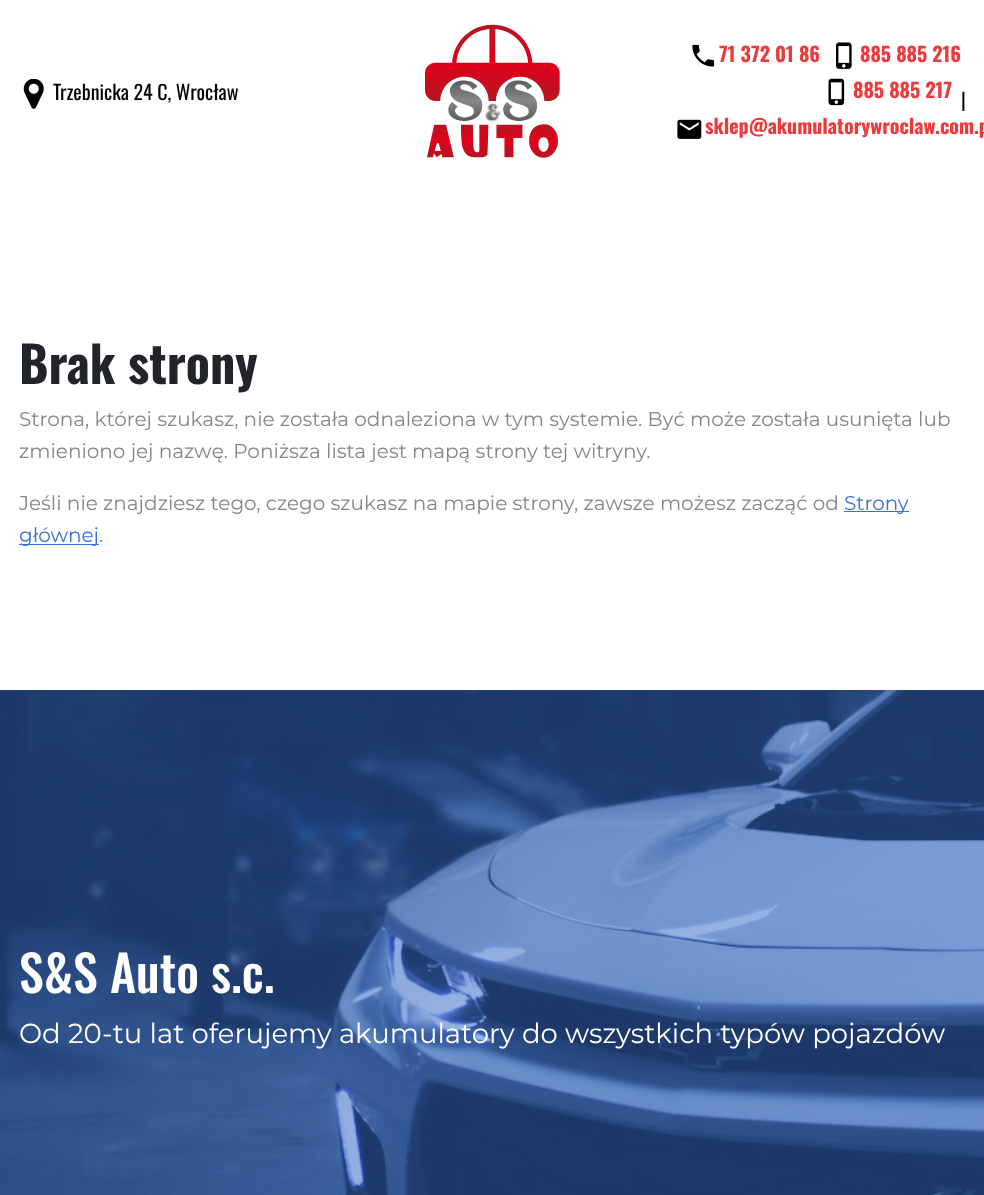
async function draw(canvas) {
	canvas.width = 984;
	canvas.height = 1195;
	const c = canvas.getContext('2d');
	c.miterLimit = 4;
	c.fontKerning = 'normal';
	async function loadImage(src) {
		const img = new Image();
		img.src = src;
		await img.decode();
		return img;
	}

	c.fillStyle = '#fff';
	c.fillRect(0, 0, 984, 1195);
	c.drawImage(await loadImage('img1.png'), 23, 79, 21, 30);
	c.font = '20px Oswald';
	c.fillStyle = '#000';
	c.fillText('Trzebnicka 24 C, Wrocław', 53, 100);
	c.drawImage(await loadImage('img2.png'), 425, 24, 135, 134);
	c.drawImage(await loadImage('img3.png'), 692, 44, 23, 23);
	c.font = 'bold 20px Oswald';
	c.fillStyle = '#ee3a3b';
	c.fillText('71 372 01 86', 719, 62);
	c.drawImage(await loadImage('img4.png'), 836, 42, 16, 27);
	c.fillText('885 885 216', 860, 62);
	c.drawImage(await loadImage('img5.png'), 828, 78, 17, 28);
	c.fillText('885 885 217', 853, 98);
	c.font = '20px Oswald';
	c.fillStyle = '#000';
	c.fillText('|', 961, 108);
	c.drawImage(await loadImage('img6.png'), 677, 119, 25, 20);
	c.font = 'bold 20px Oswald';
	c.fillStyle = '#ee3a3b';
	c.fillText('sklep@akumulatorywroclaw.com.p', 705, 134);
	c.font = 'bold 50px Oswald';
	c.fillStyle = '#212529';
	c.fillText('Brak strony', 19, 384);
	c.font = '20px Montserrat';
	c.fillStyle = '#858585';
	for (const [text, x, y] of [
		['Strona, której szukasz, nie została odnaleziona w tym systemie. Być może została usunięta lub', 19, 426],
		['zmieniono jej nazwę. Poniższa lista jest mapą strony tej witryny.', 19, 458],
		['Jeśli nie znajdziesz tego, czego szukasz na mapie strony, zawsze możesz zacząć od', 19, 510],
	]) {
		c.fillText(text, x, y);
	}
	c.fillStyle = '#3870d3';
	c.fillRect(844, 511, 65, 1);
	c.fillText('Strony', 844, 510);
	c.fillRect(19, 544, 80, 1);
	c.fillText('głównej', 19, 542);
	c.fillStyle = '#858585';
	c.fillText('.', 99, 542);
	c.drawImage(await loadImage('img7.png'), 0, 690, 984, 505);
	c.font = '500 50px Oswald';
	c.fillStyle = '#fff';
	c.fillText('S&S Auto s.c.', 19, 993);
	c.font = '27.5px Montserrat';
	c.fillText('Od 20-tu lat oferujemy akumulatory do wszystkich typów pojazdów', 19, 1043);
}

draw(document.querySelector('canvas'));
